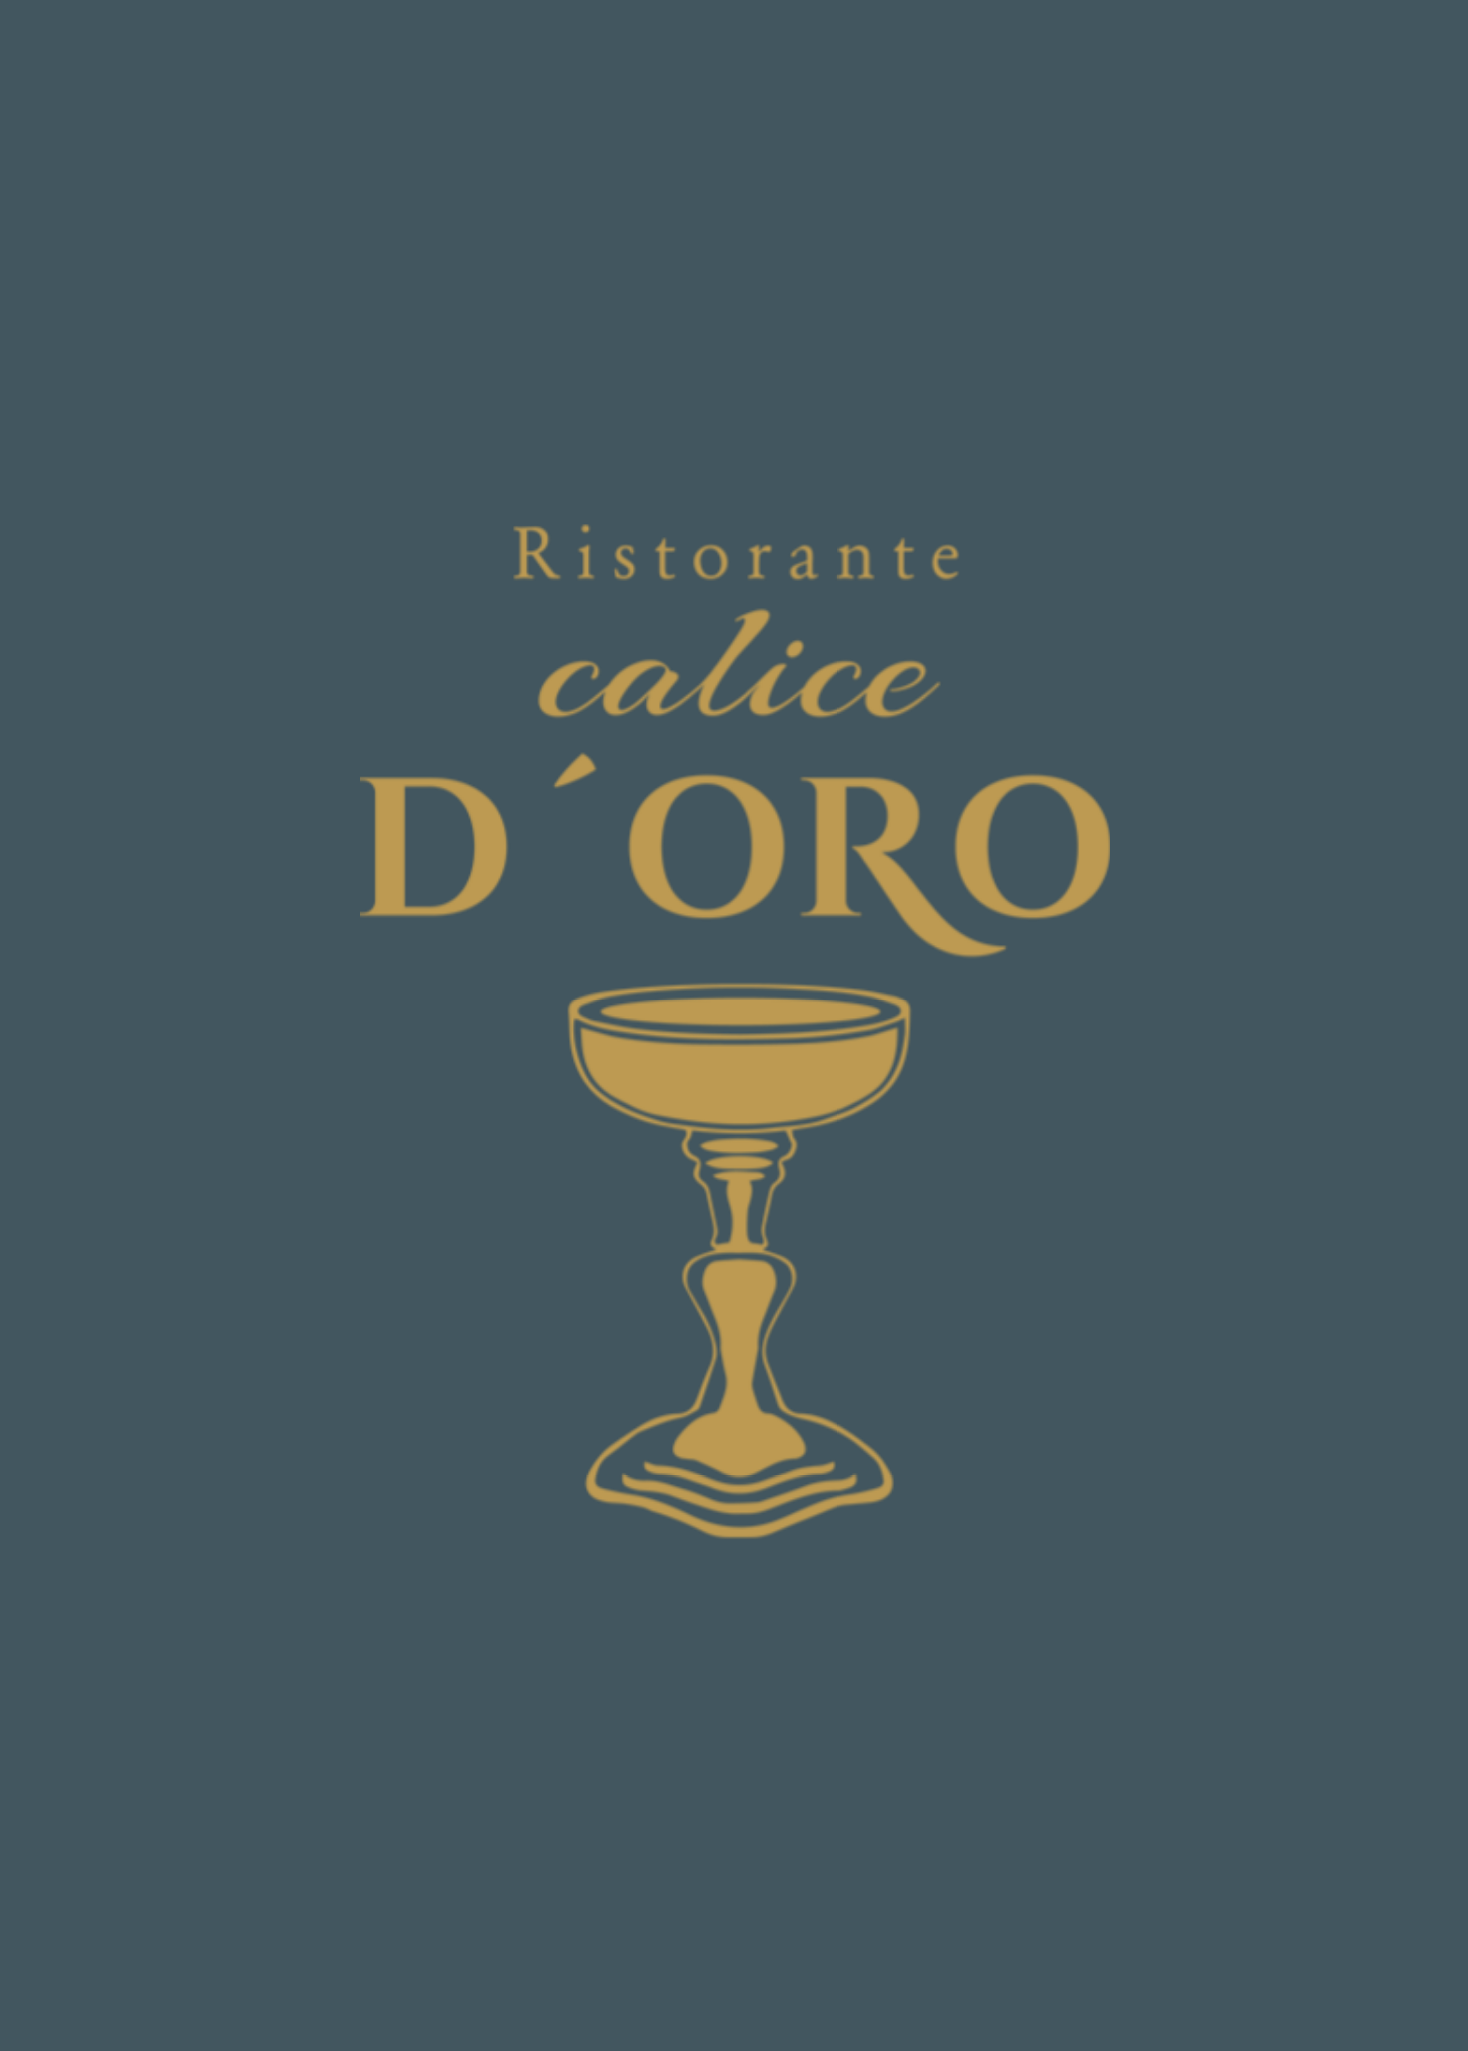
async function draw(canvas) {
	canvas.width = 1468;
	canvas.height = 2051;
	const c = canvas.getContext('2d');
	c.miterLimit = 4;
	c.fontKerning = 'normal';
	async function loadImage(src) {
		const img = new Image();
		img.src = src;
		await img.decode();
		return img;
	}

	c.fillStyle = '#42565f';
	c.fillRect(0, 0, 1468, 2051);
	c.drawImage(await loadImage('img1.png'), 360, 524, 750, 1016);
}

draw(document.querySelector('canvas'));
